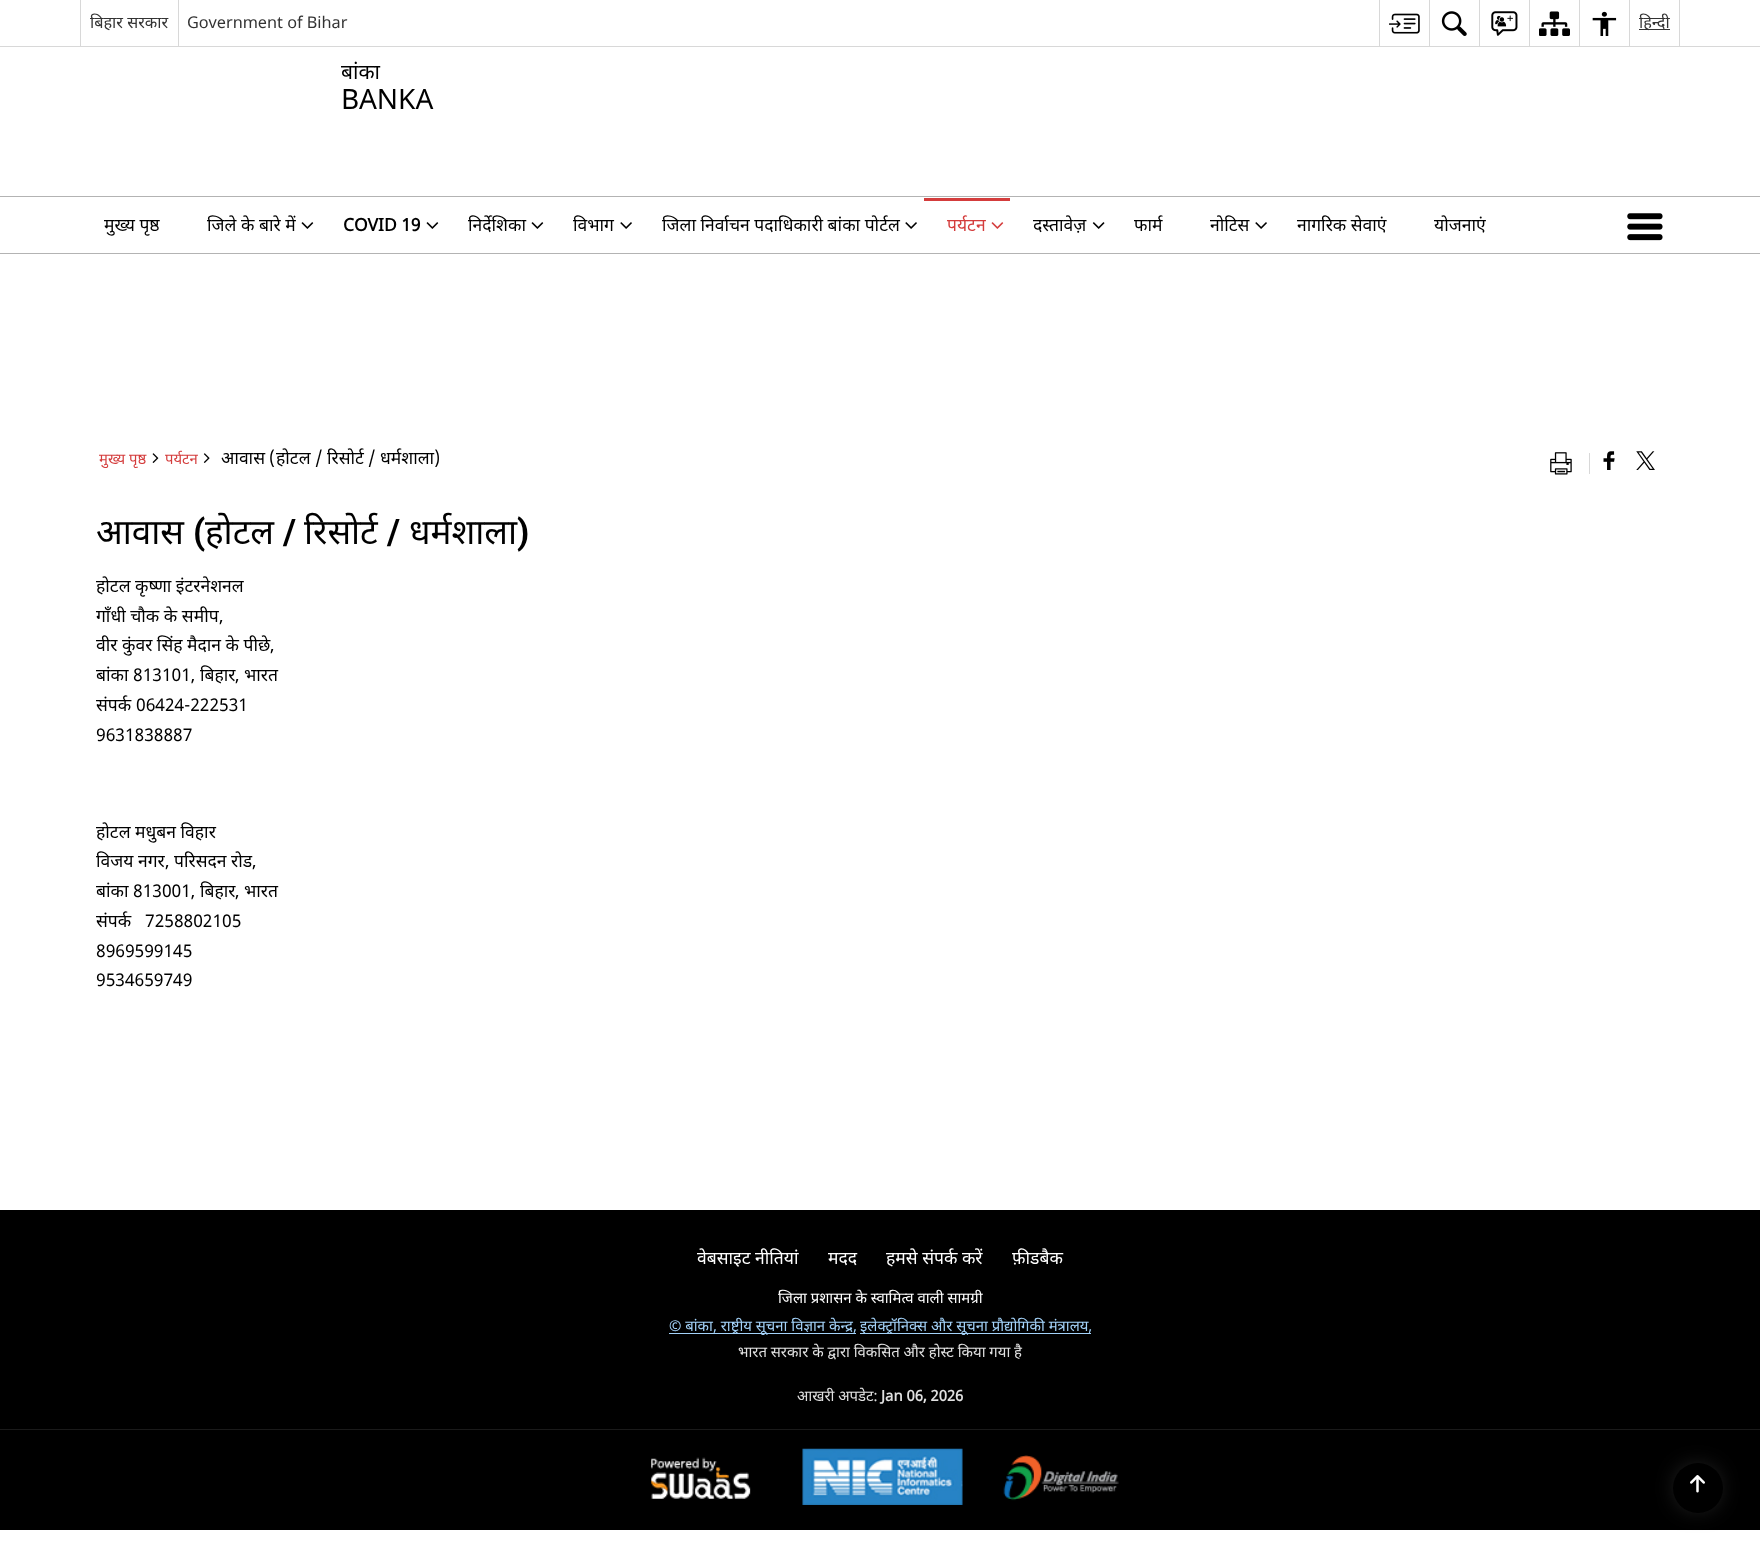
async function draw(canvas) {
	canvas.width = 1760;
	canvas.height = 1550;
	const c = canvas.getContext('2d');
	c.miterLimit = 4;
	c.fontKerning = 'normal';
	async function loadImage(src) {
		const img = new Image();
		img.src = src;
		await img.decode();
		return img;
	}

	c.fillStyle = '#fff';
	c.fillRect(0, 0, 1760, 1550);
	c.fillStyle = '#d8d8d8';
	c.fillRect(0, 46, 1760, 1);
	c.fillRect(80, 0, 1, 46);
	c.font = '16.25px Noto Sans';
	c.fillStyle = '#333';
	c.fillText('बिहार सरकार', 90, 28);
	c.fillStyle = '#d8d8d8';
	c.fillRect(178, 0, 1, 46);
	c.font = '16.25px "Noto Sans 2"';
	c.fillStyle = '#333';
	c.fillText('Government of Bihar', 187, 28);
	c.fillStyle = '#d8d8d8';
	c.fillRect(1379, 0, 1, 46);
	c.drawImage(await loadImage('img1.png'), 1389, 13, 31, 21);
	c.fillRect(1429, 0, 1, 46);
	c.drawImage(await loadImage('img2.png'), 1441, 11, 26, 25);
	c.fillRect(1479, 0, 1, 46);
	c.drawImage(await loadImage('img3.png'), 1491, 11, 27, 25);
	c.fillRect(1529, 0, 1, 46);
	c.drawImage(await loadImage('img4.png'), 1539, 11, 31, 25);
	c.fillRect(1579, 0, 1, 46);
	c.drawImage(await loadImage('img5.png'), 1592, 11, 25, 25);
	for (const [x, y, w, h, color] of [
		[1679, 0, 1, 46, '#d8d8d8'],
		[1629, 0, 1, 46, '#d8d8d8'],
		[1639, 29, 31, 1, '#333'],
	]) {
		c.fillStyle = color;
		c.fillRect(x, y, w, h);
	}
	c.font = '16.25px Noto Sans';
	c.fillText('हिन्दी', 1639, 28);
	c.font = '21px Noto Sans';
	c.fillStyle = '#000';
	c.fillText('बांका', 341, 79);
	c.font = '28px "Noto Sans 2"';
	c.fillText('BANKA', 341, 109);
	c.fillStyle = '#b3b3b3';
	c.fillRect(0, 196, 1760, 1);
	c.fillRect(0, 253, 1760, 1);
	c.font = '17.5px Noto Sans';
	c.fillStyle = '#000';
	c.fillText('मुख्य पृष्ठ', 104, 231);
	c.fillText('जिले के बारे में', 207, 231);
	c.drawImage(await loadImage('img6.png'), 301, 222, 13, 7);
	c.font = 'bold 17.5px Noto Sans';
	c.fillText('COVID 19', 343, 231);
	c.drawImage(await loadImage('img6.png'), 426, 222, 13, 7);
	c.font = '17.5px Noto Sans';
	c.fillText('निर्देशिका', 468, 231);
	c.drawImage(await loadImage('img6.png'), 531, 222, 13, 7);
	c.fillText('विभाग', 573, 231);
	c.drawImage(await loadImage('img7.png'), 620, 222, 12, 7);
	c.fillText('जिला निर्वाचन पदाधिकारी बांका पोर्टल', 662, 231);
	c.drawImage(await loadImage('img7.png'), 905, 222, 12, 7);
	c.fillStyle = '#d43c3c';
	c.fillRect(924, 198, 86, 3);
	c.fillText('पर्यटन', 947, 231);
	c.drawImage(await loadImage('img8.png'), 991, 222, 13, 7);
	c.fillStyle = '#000';
	c.fillText('दस्तावेज़', 1033, 231);
	c.drawImage(await loadImage('img9.png'), 1092, 222, 13, 7);
	c.fillText('फार्म', 1134, 231);
	c.fillText('नोटिस', 1210, 231);
	c.drawImage(await loadImage('img7.png'), 1255, 222, 12, 7);
	c.fillText('नागरिक सेवाएं', 1297, 231);
	c.fillText('योजनाएं', 1434, 231);
	c.drawImage(await loadImage('img10.png'), 1627, 213, 36, 28);
	c.font = '14.9px Noto Sans';
	c.fillStyle = '#d43c3c';
	c.fillText('मुख्य पृष्ठ', 99, 464);
	c.drawImage(await loadImage('img11.png'), 152, 453, 7, 10);
	c.fillText('पर्यटन', 165, 464);
	c.drawImage(await loadImage('img12.png'), 203, 453, 7, 10);
	c.font = '17.5px "Noto Sans 2"';
	c.fillStyle = '#000';
	c.fillText('(', 269, 464);
	c.font = '17.5px Noto Sans';
	for (const [text, x, y] of [
		['होटल', 276, 464],
		['रिसोर्ट', 327, 464],
		['धर्मशाला', 380, 464],
		['आवास', 221, 464],
	]) {
		c.fillText(text, x, y);
	}
	c.font = '17.5px "Noto Sans 2"';
	for (const [text, x, y] of [
		['/', 315, 464],
		['/', 368, 464],
		[')', 434, 464],
	]) {
		c.fillText(text, x, y);
	}
	c.drawImage(await loadImage('img13.png'), 1550, 452, 22, 23);
	c.fillStyle = '#d8d8d8';
	c.fillRect(1589, 453, 1, 21);
	c.drawImage(await loadImage('img14.png'), 1603, 451, 12, 19);
	c.drawImage(await loadImage('img15.png'), 1636, 451, 19, 19);
	c.font = 'bold 35px Roboto';
	c.fillStyle = '#000';
	c.fillText('(', 193, 544);
	c.font = '35px Noto Sans';
	for (const [text, x, y] of [
		['होटल', 205, 544],
		['रिसोर्ट', 304, 544],
		['धर्मशाला', 409, 544],
		['आवास', 96, 544],
	]) {
		c.fillText(text, x, y);
	}
	c.font = 'bold 35px Roboto';
	for (const [text, x, y] of [
		['/', 283, 544],
		['/', 387, 544],
		[')', 517, 544],
	]) {
		c.fillText(text, x, y);
	}
	c.font = '17.5px Noto Sans';
	c.fillText('होटल कृष्णा इंटरनेशनल', 96, 592);
	c.fillText('गाँधी चौक के समीप', 96, 622);
	c.font = '17.5px "Noto Sans 2"';
	c.fillText(',', 219, 622);
	c.font = '17.5px Noto Sans';
	c.fillText('वीर कुंवर सिंह मैदान के पीछे', 96, 651);
	c.font = '17.5px "Noto Sans 2"';
	c.fillText(',', 270, 651);
	c.font = '17.5px Noto Sans';
	c.fillText('बांका', 96, 681);
	c.font = '17.5px "Noto Sans 2"';
	c.fillText('813101,', 133, 681);
	c.font = '17.5px Noto Sans';
	c.fillText('बिहार', 200, 681);
	c.font = '17.5px "Noto Sans 2"';
	c.fillText(',', 235, 681);
	c.font = '17.5px Noto Sans';
	c.fillText('भारत', 244, 681);
	c.fillText('संपर्क', 96, 711);
	c.font = '17.5px "Noto Sans 2"';
	c.fillText('06424-222531', 136, 711);
	c.fillText('9631838887', 96, 741);
	c.font = '17.5px Noto Sans';
	c.fillText('होटल मधुबन विहार', 96, 838);
	c.fillText('विजय नगर', 96, 867);
	c.font = '17.5px "Noto Sans 2"';
	c.fillText(',', 165, 867);
	c.font = '17.5px Noto Sans';
	c.fillText('परिसदन रोड', 174, 867);
	c.font = '17.5px "Noto Sans 2"';
	c.fillText(',', 252, 867);
	c.font = '17.5px Noto Sans';
	c.fillText('बांका', 96, 897);
	c.font = '17.5px "Noto Sans 2"';
	c.fillText('813001,', 133, 897);
	c.font = '17.5px Noto Sans';
	c.fillText('बिहार', 200, 897);
	c.font = '17.5px "Noto Sans 2"';
	c.fillText(',', 235, 897);
	c.font = '17.5px Noto Sans';
	c.fillText('भारत', 244, 897);
	c.fillText('संपर्क', 96, 927);
	c.font = '17.5px "Noto Sans 2"';
	for (const [text, x, y] of [
		['7258802105', 145, 927],
		['8969599145', 96, 957],
		['9534659749', 96, 986],
	]) {
		c.fillText(text, x, y);
	}
	c.fillRect(0, 1210, 1760, 320);
	c.font = '17.5px Noto Sans';
	c.fillStyle = '#fff';
	for (const [text, x, y] of [
		['वेबसाइट नीतियां', 697, 1264],
		['मदद', 828, 1264],
		['हमसे संपर्क करें', 886, 1264],
		['फ़ीडबैक', 1012, 1264],
	]) {
		c.fillText(text, x, y);
	}
	c.font = '14.9px Noto Sans';
	c.fillText('जिला प्रशासन के स्वामित्व वाली सामग्री', 778, 1303);
	c.fillStyle = '#a3d2f9';
	c.fillRect(669, 1333, 187, 1);
	c.fillText('© बांका, राष्ट्रीय सूचना विज्ञान केन्द्र,', 669, 1331);
	c.fillRect(860, 1333, 231, 1);
	c.fillText('इलेक्ट्रॉनिक्स और सूचना प्रौद्योगिकी मंत्रालय,', 860, 1331);
	c.fillStyle = '#e1e1e1';
	c.fillText('भारत सरकार के द्वारा विकसित और होस्ट किया गया है', 738, 1357);
	c.fillText('आखरी अपडेट:', 797, 1401);
	c.font = 'bold 14.9px Noto Sans';
	c.fillText('Jan 06, 2026', 881, 1401);
	c.fillStyle = '#1a1a1a';
	c.fillRect(0, 1429, 1760, 1);
	c.drawImage(await loadImage('img16.png'), 651, 1457, 100, 42);
	c.drawImage(await loadImage('img17.png'), 802, 1448, 161, 57);
	c.drawImage(await loadImage('img18.png'), 1003, 1455, 116, 46);
	c.fillStyle = '#3c3c3c';
	c.filter = 'blur(12px)';
	c.beginPath();
	c.roundRect(1679, 1469, 37, 37, 18.5);
	c.fill();
	c.filter = 'none';
	c.fillStyle = '#000';
	c.beginPath();
	c.arc(1698, 1488, 25, 0, 2 * Math.PI);
	c.fill();
	c.drawImage(await loadImage('img19.png'), 1690, 1475, 15, 18);
}

draw(document.querySelector('canvas'));
